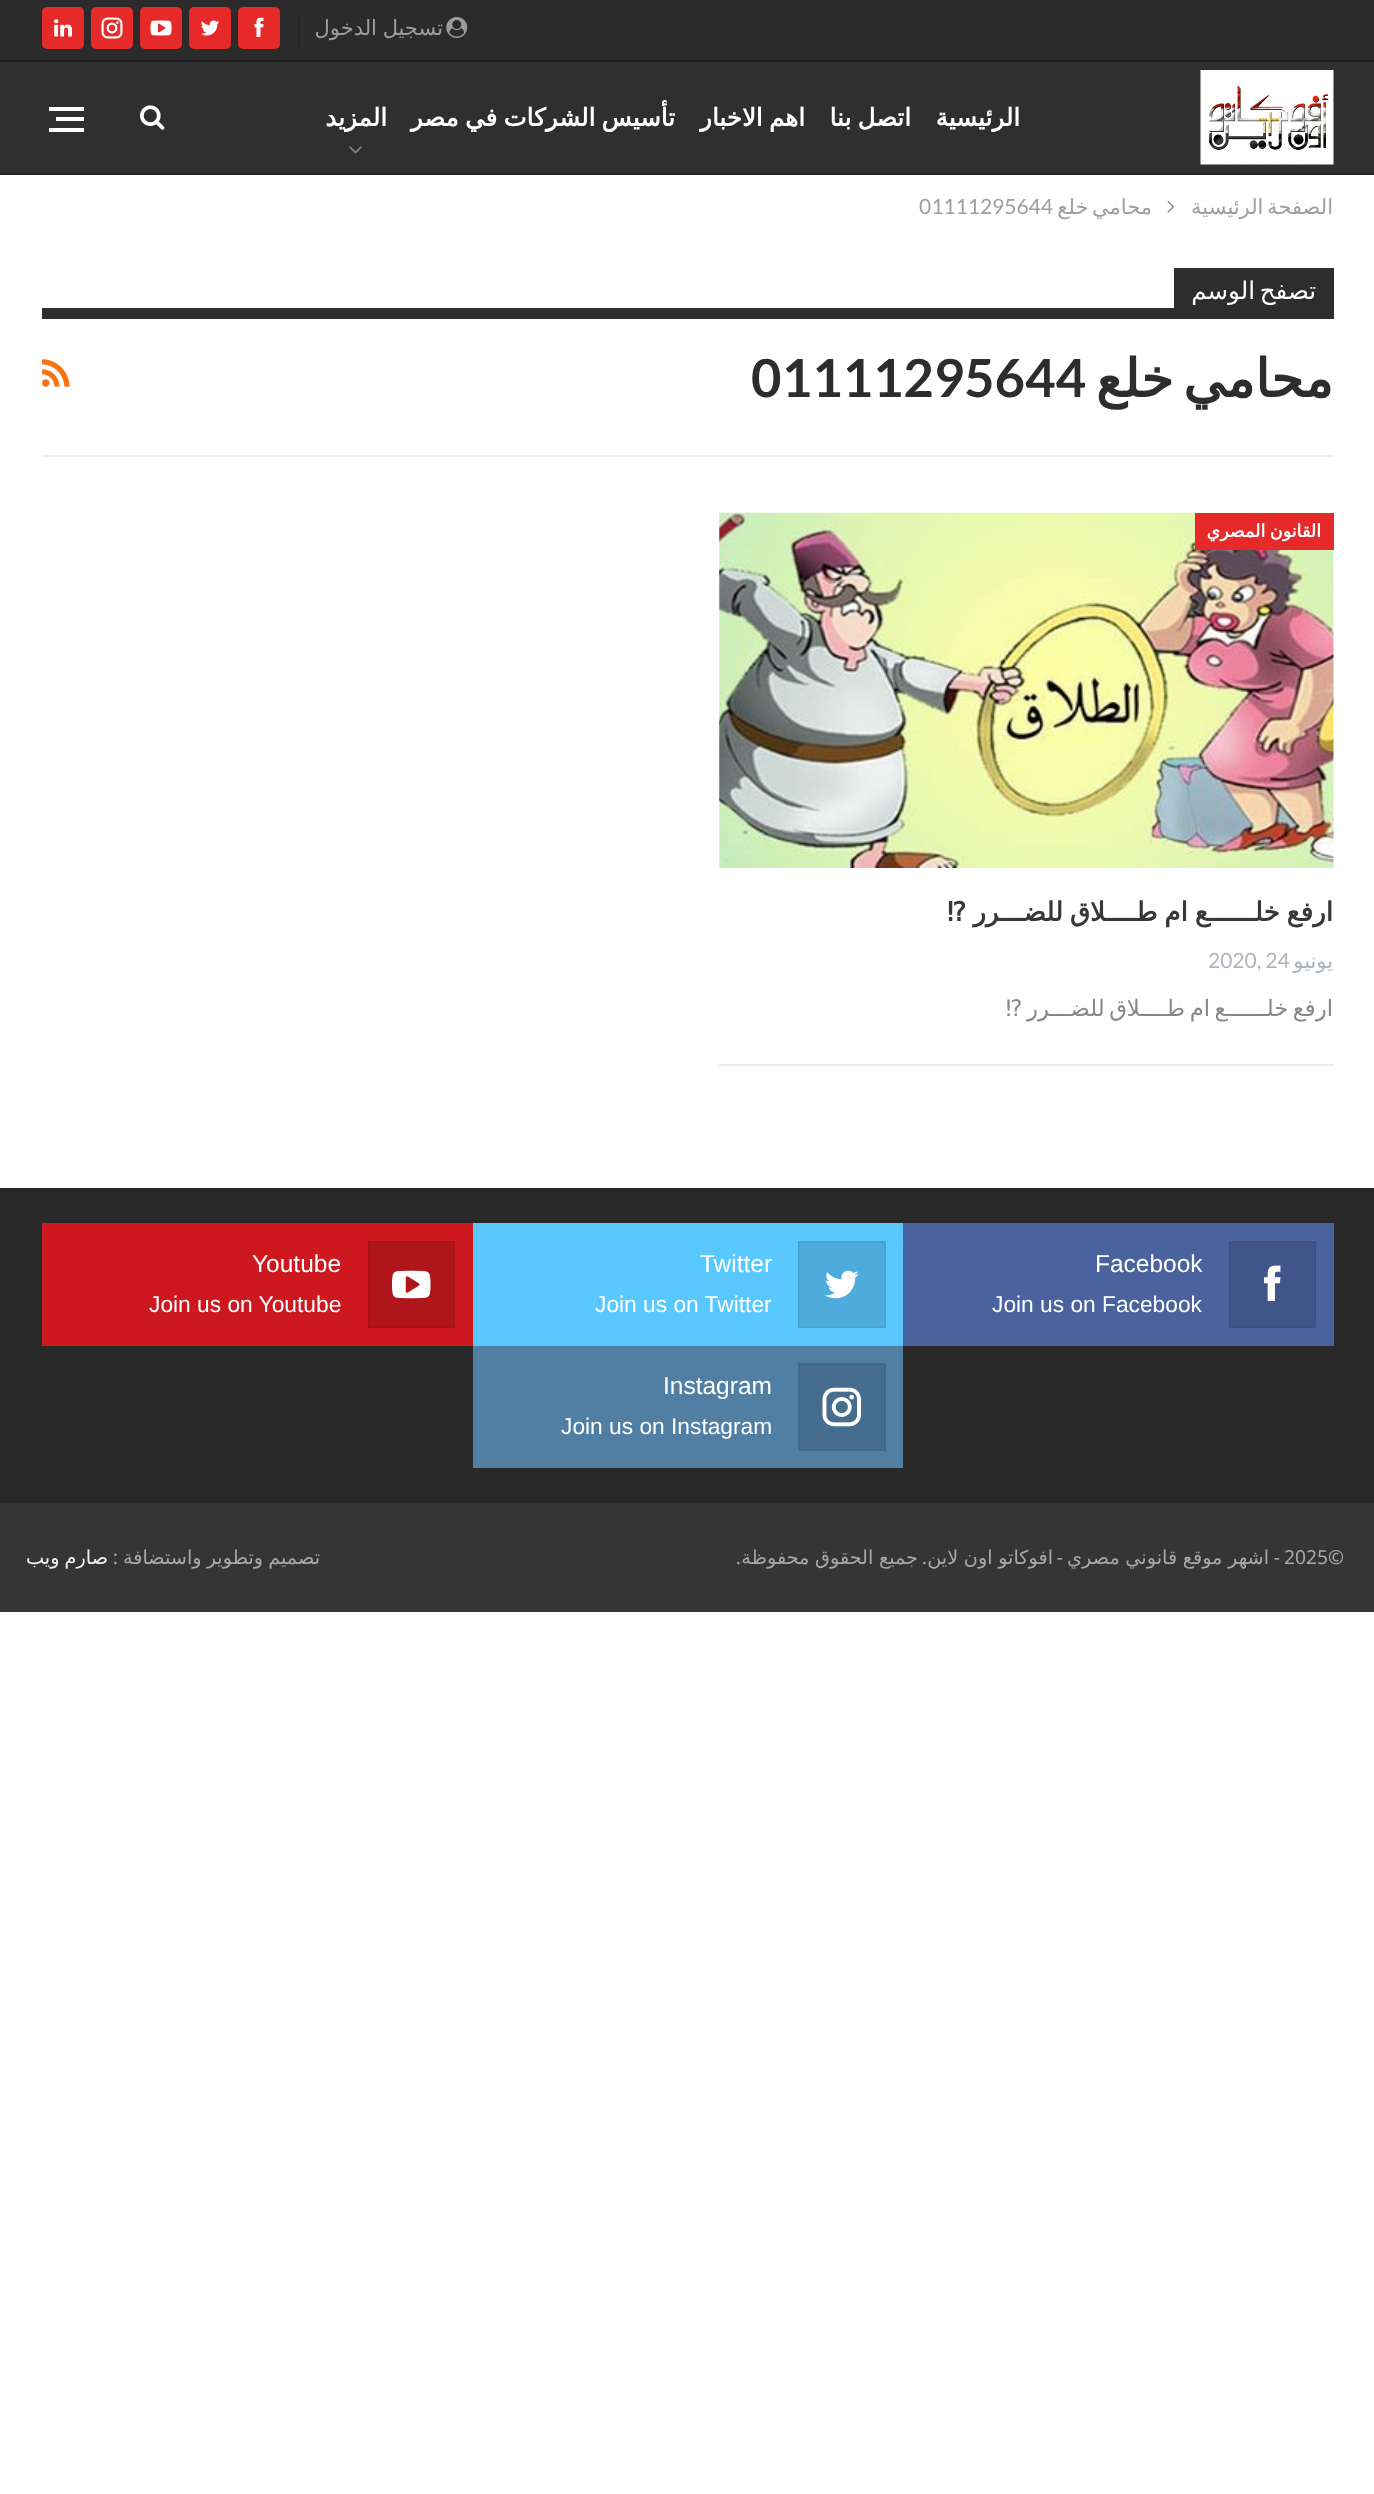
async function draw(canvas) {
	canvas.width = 1374;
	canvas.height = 2494;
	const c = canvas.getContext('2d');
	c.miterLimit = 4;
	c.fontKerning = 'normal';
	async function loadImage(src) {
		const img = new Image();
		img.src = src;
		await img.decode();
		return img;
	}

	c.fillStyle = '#fff';
	c.fillRect(0, 0, 1374, 2494);
	for (const [x, y, w, h, color] of [
		[0, 62, 1374, 111, '#2f2f2f'],
		[0, 173, 1374, 2, '#232323'],
		[0, 0, 1374, 60, '#2b2b2b'],
		[0, 60, 1374, 2, '#1d1d1d'],
	]) {
		c.fillStyle = color;
		c.fillRect(x, y, w, h);
	}
	c.drawImage(await loadImage('img1.png'), 446, 17, 22, 21);
	c.wordSpacing = '-1px';
	c.direction = 'rtl';
	c.font = '21px DejaVu Sans';
	c.fillStyle = '#9e9e9e';
	c.fillText('تسجيل الدخول', 443, 35);
	c.fillStyle = '#252525';
	c.fillRect(298, 14, 2, 32);
	c.fillStyle = '#e62929';
	c.beginPath();
	c.roundRect(238, 7, 42, 42, 5);
	c.fill();
	c.drawImage(await loadImage('img2.png'), 254, 17, 10, 20);
	c.beginPath();
	c.roundRect(189, 7, 42, 42, 5);
	c.fill();
	c.drawImage(await loadImage('img3.png'), 201, 20, 19, 16);
	c.beginPath();
	c.roundRect(140, 7, 42, 42, 5);
	c.fill();
	c.drawImage(await loadImage('img4.png'), 150, 20, 22, 16);
	c.beginPath();
	c.roundRect(91, 7, 42, 42, 5);
	c.fill();
	c.drawImage(await loadImage('img5.png'), 101, 17, 22, 22);
	c.beginPath();
	c.roundRect(42, 7, 42, 42, 5);
	c.fill();
	c.drawImage(await loadImage('img6.png'), 54, 19, 18, 18);
	c.drawImage(await loadImage('img7.png'), 1200, 70, 134, 95);
	c.wordSpacing = '0px';
	c.font = 'bold 24.5px DejaVu Sans';
	c.fillStyle = '#fff';
	c.fillText('الرئيسية', 1020, 126);
	c.wordSpacing = '-1.5px';
	for (const [text, x, y] of [
		['اتصل بنا', 911, 126],
		['اهم الاخبار', 805, 126],
		['تأسيس الشركات في مصر', 675, 126],
	]) {
		c.fillText(text, x, y);
	}
	c.wordSpacing = '0px';
	c.fillText('المزيد', 387, 126);
	c.drawImage(await loadImage('img8.png'), 349, 146, 13, 8);
	c.drawImage(await loadImage('img9.png'), 140, 105, 25, 25);
	for (const [x, y, w, h, color] of [
		[56, 117, 28, 4, '#fff'],
		[49, 107, 35, 4, '#fff'],
		[49, 128, 35, 4, '#fff'],
	]) {
		c.fillStyle = color;
		c.fillRect(x, y, w, h);
	}
	c.wordSpacing = '-3px';
	c.font = '21px DejaVu Sans';
	c.fillStyle = '#9e9e9e';
	c.fillText('الصفحة الرئيسية', 1333, 214);
	c.drawImage(await loadImage('img10.png'), 1167, 201, 8, 12);
	c.fillText('محامي خلع', 1152, 214);
	c.wordSpacing = '0px';
	c.direction = 'ltr';
	c.font = '21px Lato';
	c.fillText('01111295644', 919, 214);
	c.fillStyle = '#f0f0f0';
	c.fillRect(42, 455, 1292, 2);
	c.fillStyle = '#2d2d2d';
	c.fillRect(1174, 268, 160, 40);
	c.wordSpacing = '-3px';
	c.direction = 'rtl';
	c.font = '24.5px DejaVu Sans';
	c.fillStyle = '#fff';
	c.fillText('تصفح الوسم', 1316, 299);
	c.fillStyle = '#2d2d2d';
	c.fillRect(42, 308, 1292, 11);
	c.wordSpacing = '-7px';
	c.font = 'bold 52.5px DejaVu Sans';
	c.fillText('محامي خلع', 1333, 397);
	c.wordSpacing = '0px';
	c.direction = 'ltr';
	c.font = 'bold 52.5px Lato';
	c.fillText('01111295644', 751, 397);
	c.drawImage(await loadImage('img11.png'), 42, 359, 28, 28);
	c.drawImage(await loadImage('img12.png'), 719, 512, 615, 356);
	c.fillStyle = '#e62929';
	c.fillRect(1195, 513, 139, 37);
	c.wordSpacing = '-1px';
	c.direction = 'rtl';
	c.font = 'bold 17.5px DejaVu Sans';
	c.fillStyle = '#fff';
	c.fillText('القانون المصري', 1321, 537);
	c.wordSpacing = '-1.5px';
	c.font = 'bold 26.25px DejaVu Sans';
	c.fillStyle = '#383838';
	c.fillText('ارفع خلــــــع ام طــــلاق للضـــرر ⁉', 1333, 921);
	c.wordSpacing = '0px';
	c.font = '21px DejaVu Sans';
	c.fillStyle = '#adb5bd';
	c.fillText('يونيو', 1333, 968);
	c.direction = 'ltr';
	c.font = '21px Lato';
	c.fillText('2020, 24', 1208, 968);
	c.fillStyle = '#ededed';
	c.fillRect(719, 1064, 615, 2);
	c.wordSpacing = '-2.75px';
	c.direction = 'rtl';
	c.font = '22.75px DejaVu Sans';
	c.fillStyle = '#888';
	c.fillText('ارفع خلــــــع ام طــــلاق للضـــرر ⁉', 1333, 1016);
	c.fillStyle = '#292929';
	c.fillRect(0, 1188, 1374, 315);
	c.fillStyle = '#4a639f';
	c.fillRect(903, 1223, 431, 123);
	c.fillStyle = '#405589';
	c.beginPath();
	c.rect(1230, 1242, 85, 85);
	c.fill();
	c.strokeStyle = '#3d5182';
	c.lineWidth = 2;
	c.stroke();
	c.drawImage(await loadImage('img13.png'), 1263, 1265, 18, 36);
	c.wordSpacing = '0px';
	c.direction = 'ltr';
	c.font = '24.5px Liberation Sans';
	c.fillStyle = '#fff';
	c.fillText('Facebook', 1095, 1272);
	c.font = '22.75px Liberation Sans';
	c.fillText('Join us on Facebook', 992, 1312);
	c.fillStyle = '#59c8ff';
	c.fillRect(473, 1223, 430, 123);
	c.fillStyle = '#4dacdb';
	c.beginPath();
	c.rect(799, 1242, 86, 85);
	c.fill();
	c.strokeStyle = '#49a3d0';
	c.stroke();
	c.drawImage(await loadImage('img14.png'), 825, 1270, 34, 29);
	c.font = '24.5px Liberation Sans';
	c.fillStyle = '#fff';
	c.fillText('Twitter', 700, 1272);
	c.font = '22.75px Liberation Sans';
	c.fillText('Join us on Twitter', 595, 1312);
	c.fillStyle = '#cc181e';
	c.fillRect(42, 1223, 431, 123);
	c.fillStyle = '#af151a';
	c.beginPath();
	c.rect(369, 1242, 85, 85);
	c.fill();
	c.strokeStyle = '#a61419';
	c.stroke();
	c.drawImage(await loadImage('img15.png'), 392, 1270, 39, 29);
	c.font = '24.5px Liberation Sans';
	c.fillStyle = '#fff';
	c.fillText('Youtube', 252, 1272);
	c.font = '22.75px Liberation Sans';
	c.fillText('Join us on Youtube', 149, 1312);
	c.fillStyle = '#517fa4';
	c.fillRect(473, 1346, 430, 122);
	c.fillStyle = '#466d8d';
	c.beginPath();
	c.rect(799, 1364, 86, 86);
	c.fill();
	c.strokeStyle = '#436886';
	c.stroke();
	c.drawImage(await loadImage('img16.png'), 822, 1387, 39, 40);
	c.font = '24.5px Liberation Sans';
	c.fillStyle = '#fff';
	c.fillText('Instagram', 663, 1394);
	c.font = '22.75px Liberation Sans';
	c.fillText('Join us on Instagram', 561, 1434);
	c.fillStyle = '#353535';
	c.fillRect(0, 1503, 1374, 109);
	c.font = '19.25px Noto Sans';
	c.fillStyle = '#a8a8a8';
	c.fillText('2025©', 1284, 1564);
	c.direction = 'rtl';
	c.fillText('-', 1280, 1564);
	c.wordSpacing = '-0.5px';
	c.font = '19.25px DejaVu Sans';
	c.fillText('اشهر موقع قانوني مصري', 1269, 1564);
	c.wordSpacing = '0px';
	c.font = '19.25px Noto Sans';
	c.fillText('-', 1063, 1564);
	c.wordSpacing = '-0.5px';
	c.font = '19.25px DejaVu Sans';
	c.fillText('افوكاتو اون لاين', 1053, 1564);
	c.fillText('جميع الحقوق محفوظة', 918, 1564);
	c.wordSpacing = '0px';
	c.font = '19.25px Noto Sans';
	c.fillText('.', 927, 1564);
	c.fillText('.', 741, 1564);
	c.wordSpacing = '-1px';
	c.font = '19.25px DejaVu Sans';
	c.fillText('تصميم وتطوير واستضافة', 320, 1564);
	c.wordSpacing = '0px';
	c.font = '19.25px Noto Sans';
	c.fillText(':', 118, 1564);
	c.wordSpacing = '-1px';
	c.font = '19.25px DejaVu Sans';
	c.fillStyle = '#f3f3f3';
	c.fillText('صارم ويب', 108, 1564);
}

draw(document.querySelector('canvas'));
